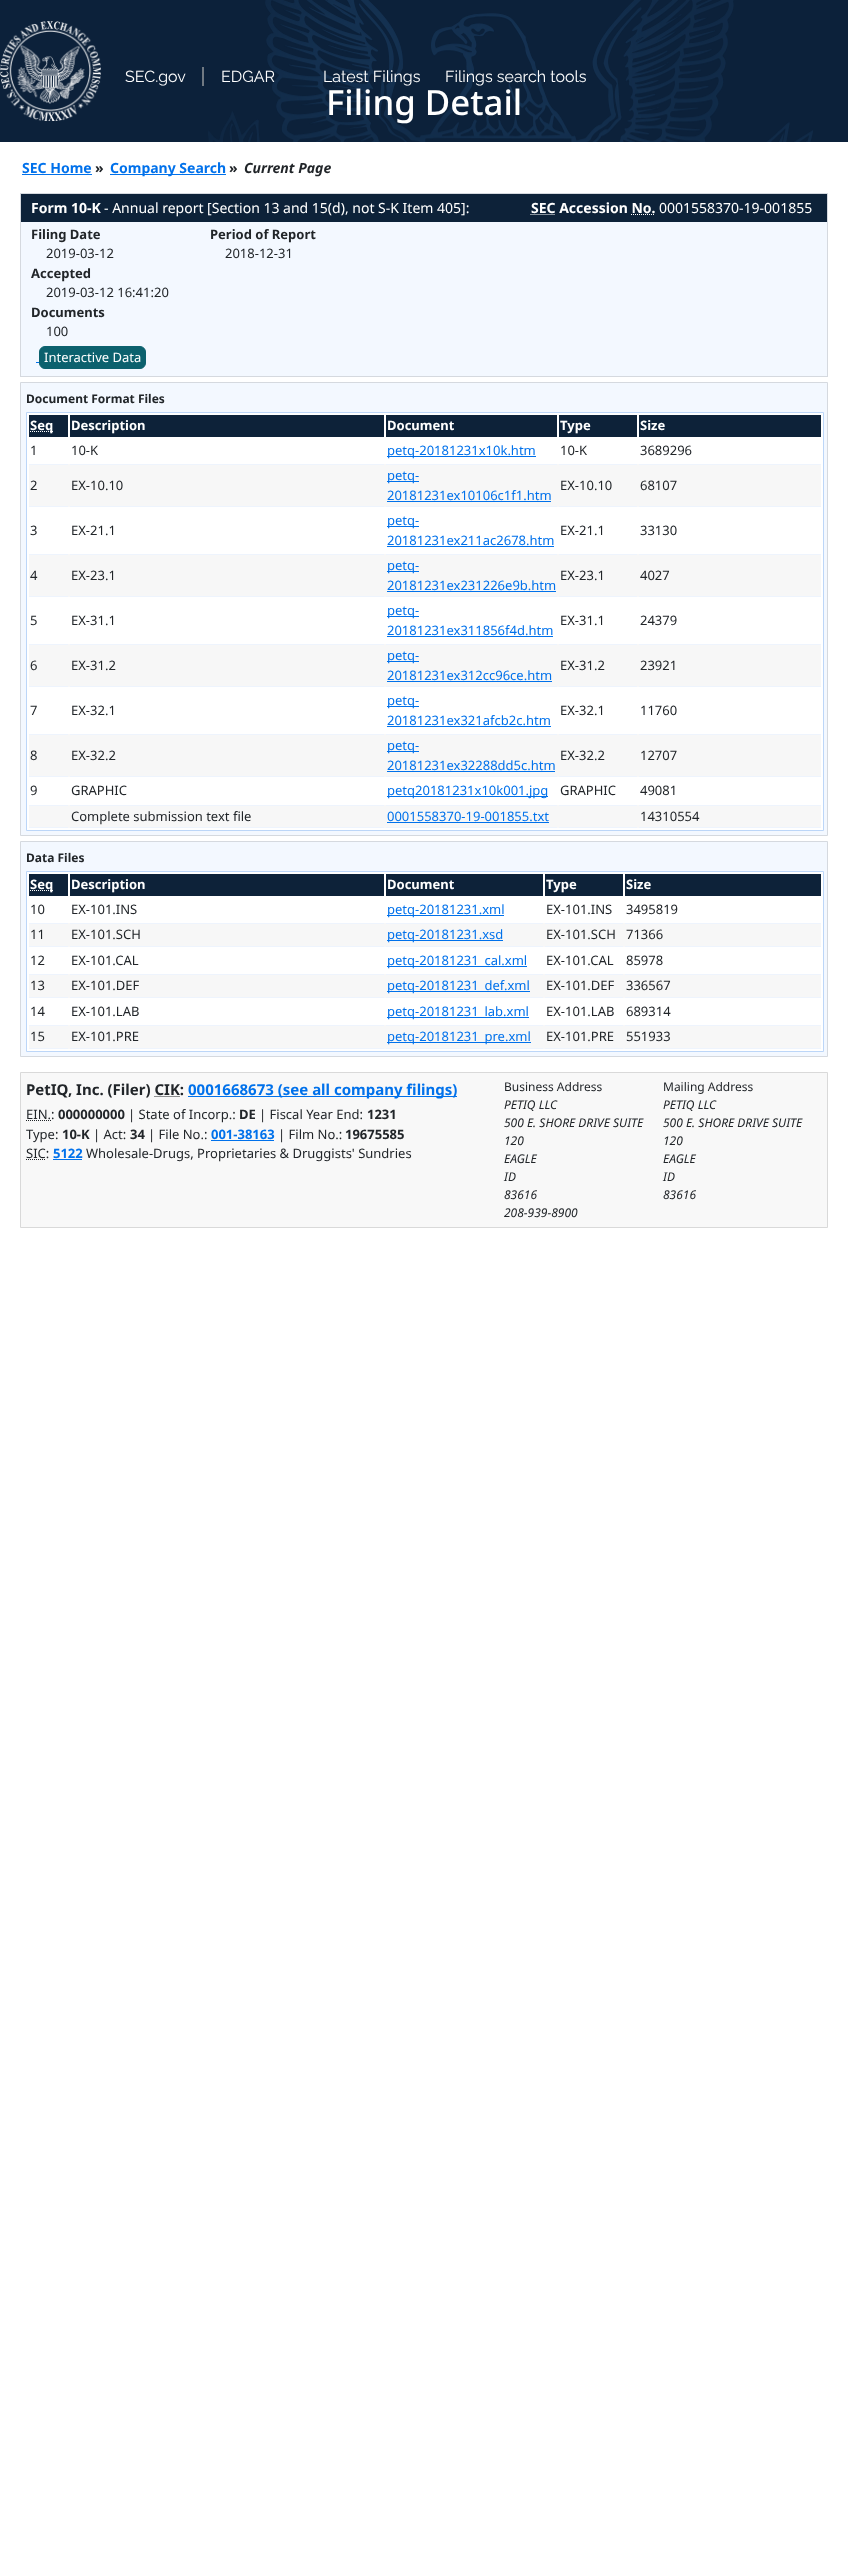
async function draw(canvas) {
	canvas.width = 848;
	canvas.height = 2571;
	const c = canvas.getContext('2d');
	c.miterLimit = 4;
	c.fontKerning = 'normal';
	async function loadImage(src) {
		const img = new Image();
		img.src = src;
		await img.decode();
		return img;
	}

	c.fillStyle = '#fff';
	c.fillRect(0, 0, 848, 2571);
	c.fillStyle = '#0c213a';
	c.fillRect(0, 0, 848, 142);
	c.drawImage(await loadImage('img1.png'), 208, 0, 605, 142);
	c.drawImage(await loadImage('img2.png'), 0, 21, 101, 100);
	c.font = '16px Raleway';
	c.fillStyle = '#fff';
	c.fillText('SEC.gov', 125, 82);
	c.fillStyle = '#707982';
	c.fillRect(202, 67, 2, 19);
	c.fillStyle = '#fff';
	for (const [text, x, y] of [
		['EDGAR', 221, 82],
		['Latest Filings', 323, 82],
		['Filings search tools', 445, 82],
	]) {
		c.fillText(text, x, y);
	}
	c.font = '500 34.75px Noto Sans';
	c.fillText('Filing Detail', 326, 115);
	c.font = 'bold 14px Noto Sans';
	c.fillStyle = '#0071eb';
	c.fillText('SEC Home', 22, 173);
	c.fillRect(22, 174, 70, 1);
	c.fillStyle = '#212529';
	c.fillText('»', 95, 173);
	c.fillStyle = '#0071eb';
	c.fillRect(110, 174, 116, 1);
	c.fillText('Company Search', 110, 173);
	c.fillStyle = '#212529';
	c.fillText('»', 229, 173);
	c.font = 'italic bold 14px Noto Sans';
	c.fillText('Current Page', 244, 173);
	c.fillStyle = '#f3f8ff';
	c.fillRect(21, 222, 806, 154);
	c.strokeStyle = '#d5d9df';
	c.strokeRect(20.5, 193.5, 807, 183);
	c.fillStyle = '#0d2239';
	c.fillRect(21, 194, 806, 28);
	c.font = 'bold 14px Noto Sans';
	c.fillStyle = '#fff';
	c.fillText('Form 10-K', 31, 213);
	c.font = '14px Noto Sans';
	c.fillText('- Annual report [Section 13 and 15(d), not S-K Item 405]:', 104, 213);
	c.font = 'bold 14px Noto Sans';
	c.fillText('SEC Accession No.', 531, 213);
	c.beginPath();
	c.moveTo(530.5, 214.5);
	c.lineTo(555, 214.5);
	c.strokeStyle = '#fff';
	c.setLineDash([1, 1]);
	c.stroke();
	c.beginPath();
	c.moveTo(631, 214.5);
	c.lineTo(655, 214.5);
	c.stroke();
	c.font = '14px Noto Sans';
	c.fillText('0001558370-19-001855', 659, 213);
	c.font = 'bold 13px Noto Sans';
	c.fillStyle = '#212529';
	c.fillText('Filing Date', 31, 239);
	c.font = '13px Noto Sans';
	c.fillText('2019-03-12', 46, 258);
	c.font = 'bold 13px Noto Sans';
	c.fillText('Accepted', 31, 278);
	c.font = '13px Noto Sans';
	c.fillText('2019-03-12 16:41:20', 46, 297);
	c.font = 'bold 13px Noto Sans';
	c.fillText('Documents', 31, 317);
	c.font = '13px Noto Sans';
	c.fillText('100', 46, 336);
	c.font = 'bold 13px Noto Sans';
	c.fillText('Period of Report', 210, 239);
	c.font = '13px Noto Sans';
	c.fillText('2018-12-31', 225, 258);
	c.fillStyle = '#0071eb';
	c.fillRect(36, 362, 3, 1);
	c.fillStyle = '#0c616e';
	c.beginPath();
	c.roundRect(39.5, 346.5, 106, 22, 5.5);
	c.fill();
	c.strokeStyle = '#0c616e';
	c.setLineDash([]);
	c.stroke();
	c.fillStyle = '#fff';
	c.fillText('Interactive Data', 44, 362);
	c.fillStyle = '#f3f8ff';
	c.beginPath();
	c.rect(20.5, 382.5, 807, 453);
	c.fill();
	c.strokeStyle = '#d5d9df';
	c.stroke();
	c.font = 'bold 12px Noto Sans';
	c.fillStyle = '#212529';
	c.fillText('Document Format Files', 26, 403);
	c.fillStyle = '#fff';
	c.beginPath();
	c.rect(26.5, 412.5, 797, 418);
	c.fill();
	c.strokeStyle = '#bcd6f8';
	c.stroke();
	c.fillStyle = '#0d2239';
	c.fillRect(29, 415, 39, 22);
	c.beginPath();
	c.moveTo(30, 431.5);
	c.lineTo(53, 431.5);
	c.strokeStyle = '#fff';
	c.setLineDash([1, 1]);
	c.stroke();
	c.font = 'bold 13px Noto Sans';
	c.fillStyle = '#fff';
	c.fillText('Seq', 30, 430);
	c.fillStyle = '#0d2239';
	c.fillRect(70, 415, 314, 22);
	c.fillStyle = '#fff';
	c.fillText('Description', 71, 430);
	c.fillStyle = '#0d2239';
	c.fillRect(386, 415, 171, 22);
	c.fillStyle = '#fff';
	c.fillText('Document', 387, 430);
	c.fillStyle = '#0d2239';
	c.fillRect(559, 415, 78, 22);
	c.fillStyle = '#fff';
	c.fillText('Type', 560, 430);
	c.fillStyle = '#0d2239';
	c.fillRect(639, 415, 182, 22);
	c.fillStyle = '#fff';
	c.fillText('Size', 640, 430);
	c.font = '13px Noto Sans';
	c.fillStyle = '#212529';
	c.fillText('1', 30, 455);
	c.fillText('10-K', 71, 455);
	c.fillStyle = '#0071eb';
	c.fillRect(387, 456, 149, 1);
	c.fillText('petq-20181231x10k.htm', 387, 455);
	c.fillStyle = '#212529';
	c.fillText('10-K', 560, 455);
	c.fillText('3689296', 640, 455);
	for (const [x, y, w, h, color] of [
		[29, 464, 792, 43, '#f7f7f7'],
		[29, 464, 39, 1, '#eef4fd'],
		[29, 506, 39, 1, '#eef4fd'],
	]) {
		c.fillStyle = color;
		c.fillRect(x, y, w, h);
	}
	c.fillStyle = '#212529';
	c.fillText('2', 30, 490);
	c.fillStyle = '#eef4fd';
	c.fillRect(70, 464, 314, 1);
	c.fillRect(70, 506, 314, 1);
	c.fillStyle = '#212529';
	c.fillText('EX-10.10', 71, 490);
	for (const [x, y, w, h, color] of [
		[386, 464, 171, 1, '#eef4fd'],
		[386, 506, 171, 1, '#eef4fd'],
		[387, 481, 32, 1, '#0071eb'],
	]) {
		c.fillStyle = color;
		c.fillRect(x, y, w, h);
	}
	c.fillText('petq-', 387, 480);
	c.fillText('20181231ex10106c1f1.htm', 387, 500);
	for (const [x, y, w, h, color] of [
		[387, 501, 164, 1, '#0071eb'],
		[559, 464, 78, 1, '#eef4fd'],
		[559, 506, 78, 1, '#eef4fd'],
	]) {
		c.fillStyle = color;
		c.fillRect(x, y, w, h);
	}
	c.fillStyle = '#212529';
	c.fillText('EX-10.10', 560, 490);
	c.fillStyle = '#eef4fd';
	c.fillRect(639, 464, 182, 1);
	c.fillRect(639, 506, 182, 1);
	c.fillStyle = '#212529';
	for (const [text, x, y] of [
		['68107', 640, 490],
		['3', 30, 535],
		['EX-21.1', 71, 535],
	]) {
		c.fillText(text, x, y);
	}
	c.fillStyle = '#0071eb';
	c.fillRect(387, 526, 32, 1);
	c.fillText('petq-', 387, 525);
	c.fillText('20181231ex211ac2678.htm', 387, 545);
	c.fillRect(387, 546, 167, 1);
	c.fillStyle = '#212529';
	c.fillText('EX-21.1', 560, 535);
	c.fillText('33130', 640, 535);
	for (const [x, y, w, h, color] of [
		[29, 554, 792, 43, '#f7f7f7'],
		[29, 554, 39, 1, '#eef4fd'],
		[29, 596, 39, 1, '#eef4fd'],
	]) {
		c.fillStyle = color;
		c.fillRect(x, y, w, h);
	}
	c.fillStyle = '#212529';
	c.fillText('4', 30, 580);
	c.fillStyle = '#eef4fd';
	c.fillRect(70, 554, 314, 1);
	c.fillRect(70, 596, 314, 1);
	c.fillStyle = '#212529';
	c.fillText('EX-23.1', 71, 580);
	for (const [x, y, w, h, color] of [
		[386, 554, 171, 1, '#eef4fd'],
		[386, 596, 171, 1, '#eef4fd'],
		[387, 571, 32, 1, '#0071eb'],
	]) {
		c.fillStyle = color;
		c.fillRect(x, y, w, h);
	}
	c.fillText('petq-', 387, 570);
	c.fillText('20181231ex231226e9b.htm', 387, 590);
	for (const [x, y, w, h, color] of [
		[387, 591, 169, 1, '#0071eb'],
		[559, 554, 78, 1, '#eef4fd'],
		[559, 596, 78, 1, '#eef4fd'],
	]) {
		c.fillStyle = color;
		c.fillRect(x, y, w, h);
	}
	c.fillStyle = '#212529';
	c.fillText('EX-23.1', 560, 580);
	c.fillStyle = '#eef4fd';
	c.fillRect(639, 554, 182, 1);
	c.fillRect(639, 596, 182, 1);
	c.fillStyle = '#212529';
	for (const [text, x, y] of [
		['4027', 640, 580],
		['5', 30, 625],
		['EX-31.1', 71, 625],
	]) {
		c.fillText(text, x, y);
	}
	c.fillStyle = '#0071eb';
	c.fillRect(387, 616, 32, 1);
	c.fillText('petq-', 387, 615);
	c.fillText('20181231ex311856f4d.htm', 387, 635);
	c.fillRect(387, 636, 166, 1);
	c.fillStyle = '#212529';
	c.fillText('EX-31.1', 560, 625);
	c.fillText('24379', 640, 625);
	for (const [x, y, w, h, color] of [
		[29, 644, 792, 43, '#f7f7f7'],
		[29, 644, 39, 1, '#eef4fd'],
		[29, 686, 39, 1, '#eef4fd'],
	]) {
		c.fillStyle = color;
		c.fillRect(x, y, w, h);
	}
	c.fillStyle = '#212529';
	c.fillText('6', 30, 670);
	c.fillStyle = '#eef4fd';
	c.fillRect(70, 644, 314, 1);
	c.fillRect(70, 686, 314, 1);
	c.fillStyle = '#212529';
	c.fillText('EX-31.2', 71, 670);
	for (const [x, y, w, h, color] of [
		[386, 644, 171, 1, '#eef4fd'],
		[386, 686, 171, 1, '#eef4fd'],
		[387, 661, 32, 1, '#0071eb'],
	]) {
		c.fillStyle = color;
		c.fillRect(x, y, w, h);
	}
	c.fillText('petq-', 387, 660);
	c.fillText('20181231ex312cc96ce.htm', 387, 680);
	for (const [x, y, w, h, color] of [
		[387, 681, 165, 1, '#0071eb'],
		[559, 644, 78, 1, '#eef4fd'],
		[559, 686, 78, 1, '#eef4fd'],
	]) {
		c.fillStyle = color;
		c.fillRect(x, y, w, h);
	}
	c.fillStyle = '#212529';
	c.fillText('EX-31.2', 560, 670);
	c.fillStyle = '#eef4fd';
	c.fillRect(639, 644, 182, 1);
	c.fillRect(639, 686, 182, 1);
	c.fillStyle = '#212529';
	for (const [text, x, y] of [
		['23921', 640, 670],
		['7', 30, 715],
		['EX-32.1', 71, 715],
	]) {
		c.fillText(text, x, y);
	}
	c.fillStyle = '#0071eb';
	c.fillRect(387, 706, 32, 1);
	c.fillText('petq-', 387, 705);
	c.fillText('20181231ex321afcb2c.htm', 387, 725);
	c.fillRect(387, 726, 164, 1);
	c.fillStyle = '#212529';
	c.fillText('EX-32.1', 560, 715);
	c.fillText('11760', 640, 715);
	for (const [x, y, w, h, color] of [
		[29, 734, 792, 43, '#f7f7f7'],
		[29, 734, 39, 1, '#eef4fd'],
		[29, 776, 39, 1, '#eef4fd'],
	]) {
		c.fillStyle = color;
		c.fillRect(x, y, w, h);
	}
	c.fillStyle = '#212529';
	c.fillText('8', 30, 760);
	c.fillStyle = '#eef4fd';
	c.fillRect(70, 734, 314, 1);
	c.fillRect(70, 776, 314, 1);
	c.fillStyle = '#212529';
	c.fillText('EX-32.2', 71, 760);
	for (const [x, y, w, h, color] of [
		[386, 734, 171, 1, '#eef4fd'],
		[386, 776, 171, 1, '#eef4fd'],
		[387, 751, 32, 1, '#0071eb'],
	]) {
		c.fillStyle = color;
		c.fillRect(x, y, w, h);
	}
	c.fillText('petq-', 387, 750);
	c.fillText('20181231ex32288dd5c.htm', 387, 770);
	for (const [x, y, w, h, color] of [
		[387, 771, 168, 1, '#0071eb'],
		[559, 734, 78, 1, '#eef4fd'],
		[559, 776, 78, 1, '#eef4fd'],
	]) {
		c.fillStyle = color;
		c.fillRect(x, y, w, h);
	}
	c.fillStyle = '#212529';
	c.fillText('EX-32.2', 560, 760);
	c.fillStyle = '#eef4fd';
	c.fillRect(639, 734, 182, 1);
	c.fillRect(639, 776, 182, 1);
	c.fillStyle = '#212529';
	for (const [text, x, y] of [
		['12707', 640, 760],
		['9', 30, 795],
		['GRAPHIC', 71, 795],
	]) {
		c.fillText(text, x, y);
	}
	c.fillStyle = '#0071eb';
	c.fillRect(387, 796, 161, 1);
	c.fillText('petq20181231x10k001.jpg', 387, 795);
	c.fillStyle = '#212529';
	c.fillText('GRAPHIC', 560, 795);
	c.fillText('49081', 640, 795);
	for (const [x, y, w, h, color] of [
		[29, 805, 792, 23, '#f7f7f7'],
		[29, 805, 39, 1, '#eef4fd'],
		[29, 827, 39, 1, '#eef4fd'],
		[70, 805, 314, 1, '#eef4fd'],
		[70, 827, 314, 1, '#eef4fd'],
	]) {
		c.fillStyle = color;
		c.fillRect(x, y, w, h);
	}
	c.fillStyle = '#212529';
	c.fillText('Complete submission text file', 71, 821);
	c.fillStyle = '#eef4fd';
	c.fillRect(386, 805, 171, 1);
	c.fillRect(386, 827, 171, 1);
	c.fillStyle = '#0071eb';
	c.fillText('0001558370-19-001855.txt', 387, 821);
	for (const [x, y, w, h, color] of [
		[387, 822, 162, 1, '#0071eb'],
		[559, 805, 78, 1, '#eef4fd'],
		[559, 827, 78, 1, '#eef4fd'],
		[639, 805, 182, 1, '#eef4fd'],
		[639, 827, 182, 1, '#eef4fd'],
	]) {
		c.fillStyle = color;
		c.fillRect(x, y, w, h);
	}
	c.fillStyle = '#212529';
	c.fillText('14310554', 640, 821);
	c.fillStyle = '#f3f8ff';
	c.beginPath();
	c.rect(20.5, 841.5, 807, 215);
	c.fill();
	c.strokeStyle = '#d5d9df';
	c.setLineDash([]);
	c.stroke();
	c.font = 'bold 12px Noto Sans';
	c.fillStyle = '#212529';
	c.fillText('Data Files', 26, 862);
	c.fillStyle = '#fff';
	c.beginPath();
	c.rect(26.5, 871.5, 797, 180);
	c.fill();
	c.strokeStyle = '#bcd6f8';
	c.stroke();
	c.fillStyle = '#0d2239';
	c.fillRect(29, 874, 39, 22);
	c.beginPath();
	c.moveTo(30, 890.5);
	c.lineTo(53, 890.5);
	c.strokeStyle = '#fff';
	c.setLineDash([1, 1]);
	c.stroke();
	c.font = 'bold 13px Noto Sans';
	c.fillStyle = '#fff';
	c.fillText('Seq', 30, 889);
	c.fillStyle = '#0d2239';
	c.fillRect(70, 874, 314, 22);
	c.fillStyle = '#fff';
	c.fillText('Description', 71, 889);
	c.fillStyle = '#0d2239';
	c.fillRect(386, 874, 157, 22);
	c.fillStyle = '#fff';
	c.fillText('Document', 387, 889);
	c.fillStyle = '#0d2239';
	c.fillRect(545, 874, 78, 22);
	c.fillStyle = '#fff';
	c.fillText('Type', 546, 889);
	c.fillStyle = '#0d2239';
	c.fillRect(625, 874, 196, 22);
	c.fillStyle = '#fff';
	c.fillText('Size', 626, 889);
	c.font = '13px Noto Sans';
	c.fillStyle = '#212529';
	c.fillText('10', 30, 914);
	c.fillText('EX-101.INS', 71, 914);
	c.fillStyle = '#0071eb';
	c.fillRect(387, 915, 117, 1);
	c.fillText('petq-20181231.xml', 387, 914);
	c.fillStyle = '#212529';
	c.fillText('EX-101.INS', 546, 914);
	c.fillText('3495819', 626, 914);
	for (const [x, y, w, h, color] of [
		[29, 923, 792, 24, '#f7f7f7'],
		[29, 923, 39, 1, '#eef4fd'],
		[29, 946, 39, 1, '#eef4fd'],
	]) {
		c.fillStyle = color;
		c.fillRect(x, y, w, h);
	}
	c.fillStyle = '#212529';
	c.fillText('11', 30, 939);
	c.fillStyle = '#eef4fd';
	c.fillRect(70, 923, 314, 1);
	c.fillRect(70, 946, 314, 1);
	c.fillStyle = '#212529';
	c.fillText('EX-101.SCH', 71, 939);
	for (const [x, y, w, h, color] of [
		[386, 923, 157, 1, '#eef4fd'],
		[386, 946, 157, 1, '#eef4fd'],
		[387, 940, 116, 1, '#0071eb'],
	]) {
		c.fillStyle = color;
		c.fillRect(x, y, w, h);
	}
	c.fillText('petq-20181231.xsd', 387, 939);
	c.fillStyle = '#eef4fd';
	c.fillRect(545, 923, 78, 1);
	c.fillRect(545, 946, 78, 1);
	c.fillStyle = '#212529';
	c.fillText('EX-101.SCH', 546, 939);
	c.fillStyle = '#eef4fd';
	c.fillRect(625, 923, 196, 1);
	c.fillRect(625, 946, 196, 1);
	c.fillStyle = '#212529';
	for (const [text, x, y] of [
		['71366', 626, 939],
		['12', 30, 965],
		['EX-101.CAL', 71, 965],
	]) {
		c.fillText(text, x, y);
	}
	c.fillStyle = '#0071eb';
	c.fillRect(387, 966, 140, 1);
	c.fillText('petq-20181231_cal.xml', 387, 965);
	c.fillStyle = '#212529';
	c.fillText('EX-101.CAL', 546, 965);
	c.fillText('85978', 626, 965);
	for (const [x, y, w, h, color] of [
		[29, 974, 792, 24, '#f7f7f7'],
		[29, 974, 39, 1, '#eef4fd'],
		[29, 997, 39, 1, '#eef4fd'],
	]) {
		c.fillStyle = color;
		c.fillRect(x, y, w, h);
	}
	c.fillStyle = '#212529';
	c.fillText('13', 30, 990);
	c.fillStyle = '#eef4fd';
	c.fillRect(70, 974, 314, 1);
	c.fillRect(70, 997, 314, 1);
	c.fillStyle = '#212529';
	c.fillText('EX-101.DEF', 71, 990);
	for (const [x, y, w, h, color] of [
		[386, 974, 157, 1, '#eef4fd'],
		[386, 997, 157, 1, '#eef4fd'],
		[387, 991, 143, 1, '#0071eb'],
	]) {
		c.fillStyle = color;
		c.fillRect(x, y, w, h);
	}
	c.fillText('petq-20181231_def.xml', 387, 990);
	c.fillStyle = '#eef4fd';
	c.fillRect(545, 974, 78, 1);
	c.fillRect(545, 997, 78, 1);
	c.fillStyle = '#212529';
	c.fillText('EX-101.DEF', 546, 990);
	c.fillStyle = '#eef4fd';
	c.fillRect(625, 974, 196, 1);
	c.fillRect(625, 997, 196, 1);
	c.fillStyle = '#212529';
	for (const [text, x, y] of [
		['336567', 626, 990],
		['14', 30, 1016],
		['EX-101.LAB', 71, 1016],
	]) {
		c.fillText(text, x, y);
	}
	c.fillStyle = '#0071eb';
	c.fillRect(387, 1017, 142, 1);
	c.fillText('petq-20181231_lab.xml', 387, 1016);
	c.fillStyle = '#212529';
	c.fillText('EX-101.LAB', 546, 1016);
	c.fillText('689314', 626, 1016);
	for (const [x, y, w, h, color] of [
		[29, 1025, 792, 24, '#f7f7f7'],
		[29, 1025, 39, 1, '#eef4fd'],
		[29, 1048, 39, 1, '#eef4fd'],
	]) {
		c.fillStyle = color;
		c.fillRect(x, y, w, h);
	}
	c.fillStyle = '#212529';
	c.fillText('15', 30, 1041);
	c.fillStyle = '#eef4fd';
	c.fillRect(70, 1025, 314, 1);
	c.fillRect(70, 1048, 314, 1);
	c.fillStyle = '#212529';
	c.fillText('EX-101.PRE', 71, 1041);
	for (const [x, y, w, h, color] of [
		[386, 1025, 157, 1, '#eef4fd'],
		[386, 1048, 157, 1, '#eef4fd'],
		[387, 1042, 144, 1, '#0071eb'],
	]) {
		c.fillStyle = color;
		c.fillRect(x, y, w, h);
	}
	c.fillText('petq-20181231_pre.xml', 387, 1041);
	c.fillStyle = '#eef4fd';
	c.fillRect(545, 1025, 78, 1);
	c.fillRect(545, 1048, 78, 1);
	c.fillStyle = '#212529';
	c.fillText('EX-101.PRE', 546, 1041);
	c.fillStyle = '#eef4fd';
	c.fillRect(625, 1025, 196, 1);
	c.fillRect(625, 1048, 196, 1);
	c.fillStyle = '#212529';
	c.fillText('551933', 626, 1041);
	c.fillStyle = '#f8f8f8';
	c.beginPath();
	c.rect(20.5, 1072.5, 807, 155);
	c.fill();
	c.strokeStyle = '#d9d9d9';
	c.setLineDash([]);
	c.stroke();
	c.font = 'bold 15px Noto Sans';
	c.fillStyle = '#212529';
	c.fillText('PetIQ, Inc. (Filer) CIK:', 26, 1095);
	c.fillStyle = '#0071eb';
	c.fillRect(188, 1096, 269, 1);
	c.fillText('0001668673 (see all company filings)', 188, 1095);
	c.beginPath();
	c.moveTo(154.5, 1096.5);
	c.lineTo(180, 1096.5);
	c.strokeStyle = '#212529';
	c.setLineDash([1, 1]);
	c.stroke();
	c.font = '13px Noto Sans';
	c.fillStyle = '#212529';
	c.fillText('EIN.:', 26, 1119);
	c.beginPath();
	c.moveTo(26, 1120.5);
	c.lineTo(51, 1120.5);
	c.stroke();
	c.font = 'bold 13px Noto Sans';
	c.fillText('000000000', 58, 1119);
	c.font = '13px Noto Sans';
	c.fillText('| State of Incorp.:', 128, 1119);
	c.font = 'bold 13px Noto Sans';
	c.fillText('DE', 239, 1119);
	c.font = '13px Noto Sans';
	c.fillText('| Fiscal Year End:', 259, 1119);
	c.font = 'bold 13px Noto Sans';
	c.fillText('1231', 367, 1119);
	c.font = '13px Noto Sans';
	c.fillText('Type:', 26, 1139);
	c.font = 'bold 13px Noto Sans';
	c.fillText('10-K', 62, 1139);
	c.font = '13px Noto Sans';
	c.fillText('| Act:', 93, 1139);
	c.font = 'bold 13px Noto Sans';
	c.fillText('34', 130, 1139);
	c.font = '13px Noto Sans';
	c.fillText('| File No.:', 148, 1139);
	c.font = 'bold 13px Noto Sans';
	c.fillStyle = '#0071eb';
	c.fillText('001-38163', 211, 1139);
	c.fillRect(211, 1140, 63, 1);
	c.font = '13px Noto Sans';
	c.fillStyle = '#212529';
	c.fillText('| Film No.:', 278, 1139);
	c.font = 'bold 13px Noto Sans';
	c.fillText('19675585', 345, 1139);
	c.font = '13px Noto Sans';
	c.fillText('SIC:', 26, 1158);
	c.beginPath();
	c.moveTo(26, 1159.5);
	c.lineTo(46, 1159.5);
	c.stroke();
	c.font = 'bold 13px Noto Sans';
	c.fillStyle = '#0071eb';
	c.fillText('5122', 53, 1158);
	c.fillRect(53, 1159, 29, 1);
	c.font = '13px Noto Sans';
	c.fillStyle = '#212529';
	c.fillText('Wholesale-Drugs, Proprietaries & Druggists\' Sundries', 86, 1158);
	c.font = '12px Noto Sans';
	c.fillText('Business Address', 504, 1091);
	c.font = 'italic 12px Noto Sans';
	for (const [text, x, y] of [
		['PETIQ LLC', 504, 1109],
		['500 E. SHORE DRIVE SUITE', 504, 1127],
		['120', 504, 1145],
		['EAGLE', 504, 1163],
		['ID', 504, 1181],
		['83616', 504, 1199],
		['208-939-8900', 504, 1217],
	]) {
		c.fillText(text, x, y);
	}
	c.font = '12px Noto Sans';
	c.fillText('Mailing Address', 663, 1091);
	c.font = 'italic 12px Noto Sans';
	for (const [text, x, y] of [
		['PETIQ LLC', 663, 1109],
		['500 E. SHORE DRIVE SUITE', 663, 1127],
		['120', 663, 1145],
		['EAGLE', 663, 1163],
		['ID', 663, 1181],
		['83616', 663, 1199],
	]) {
		c.fillText(text, x, y);
	}
}

draw(document.querySelector('canvas'));
